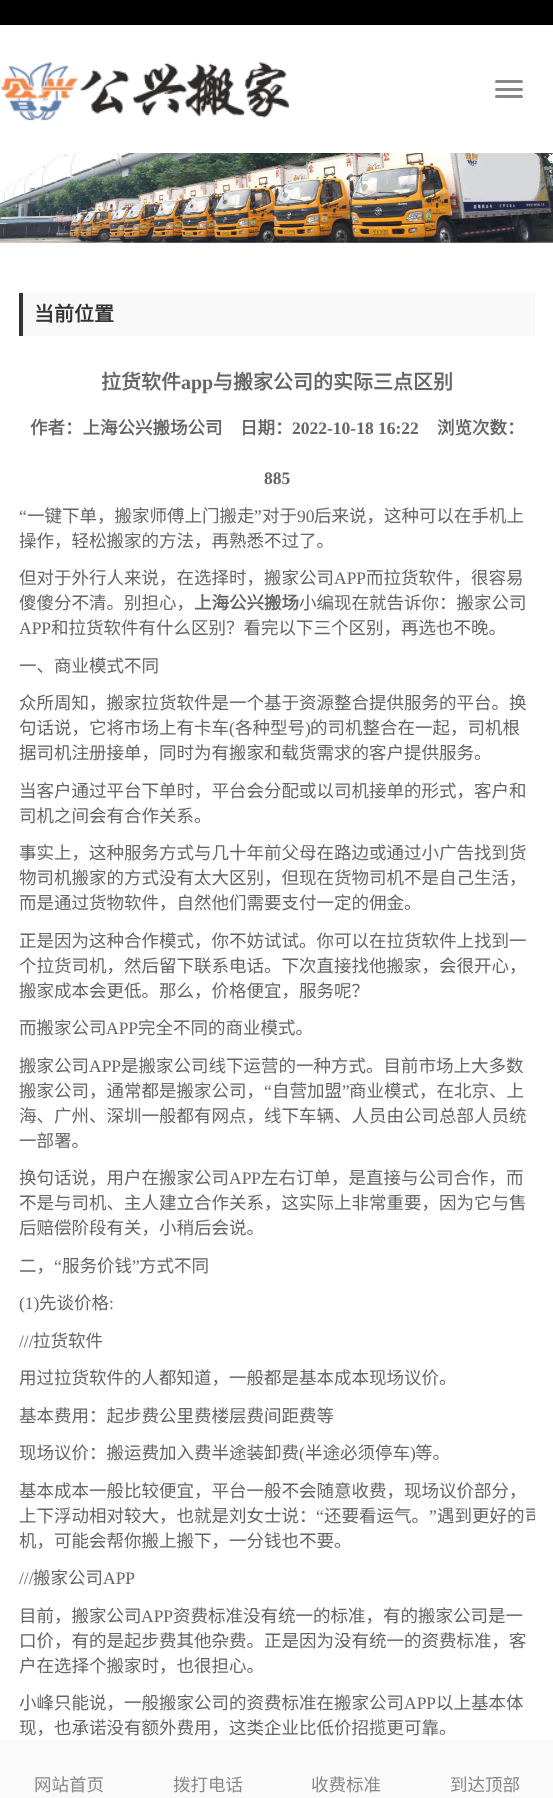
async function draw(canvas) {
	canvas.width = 553;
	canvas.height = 1798;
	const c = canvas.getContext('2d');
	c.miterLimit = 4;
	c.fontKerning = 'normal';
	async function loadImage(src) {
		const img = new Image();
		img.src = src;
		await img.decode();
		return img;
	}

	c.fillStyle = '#fff';
	c.fillRect(0, 0, 553, 1798);
	c.fillStyle = '#000';
	c.fillRect(0, 0, 553, 25);
	c.drawImage(await loadImage('img1.png'), 1, 62, 289, 59);
	c.fillStyle = '#888';
	c.beginPath();
	c.roundRect(495, 80, 28, 3, 1.5);
	c.fill();
	c.beginPath();
	c.roundRect(495, 88, 28, 3, 1.5);
	c.fill();
	c.beginPath();
	c.roundRect(495, 95, 28, 3, 1.5);
	c.fill();
	c.drawImage(await loadImage('img2.png'), 0, 242, 553, 1);
	c.drawImage(await loadImage('img3.png'), 0, 153, 553, 90);
	c.fillStyle = '#f9f9f9';
	c.fillRect(23, 293, 512, 43);
	c.fillStyle = '#333';
	c.fillRect(19, 293, 4, 43);
	c.font = 'bold 20px Noto Sans CJK SC';
	c.fillText('当前位置', 34, 321);
	c.fillStyle = '#666';
	c.fillText('拉货软件', 101, 389);
	c.font = 'bold 20px Liberation Serif';
	c.fillText('app', 181, 389);
	c.font = 'bold 20px Noto Sans CJK SC';
	c.fillText('与搬家公司的实际三点区别', 213, 389);
	c.font = 'bold 17.5px Noto Sans CJK SC';
	c.fillText('作者：上海公兴搬场公司　日期：', 30, 434);
	c.font = 'bold 17.5px Liberation Serif';
	c.fillText('2022-10-18 16:22', 292, 434);
	c.font = 'bold 17.5px Noto Sans CJK SC';
	c.fillText('浏览次数：', 437, 434);
	c.font = 'bold 17.5px Liberation Serif';
	c.fillText('885', 264, 484);
	c.font = '17.5px Liberation Serif';
	c.fillText('“', 19, 522);
	c.font = '17.5px Noto Sans CJK SC';
	c.fillText('一键下单，搬家师傅上门搬走', 27, 522);
	c.font = '17.5px Liberation Serif';
	c.fillText('”', 254, 522);
	c.font = '17.5px Noto Sans CJK SC';
	c.fillText('对于', 262, 522);
	c.font = '17.5px Liberation Serif';
	c.fillText('90', 297, 522);
	c.font = '17.5px Noto Sans CJK SC';
	for (const [text, x, y] of [
		['后来说，这种可以在手机上', 314, 522],
		['操作，轻松搬家的方法，再熟悉不过了。', 19, 547],
		['但对于外行人来说，在选择时，搬家公司', 19, 584],
	]) {
		c.fillText(text, x, y);
	}
	c.font = '17.5px Liberation Serif';
	c.fillText('APP', 334, 584);
	c.font = '17.5px Noto Sans CJK SC';
	c.fillText('而拉货软件，很容易', 366, 584);
	c.fillText('傻傻分不清。别担心，', 19, 609);
	c.font = 'bold 17.5px Noto Sans CJK SC';
	c.fillText('上海公兴搬场', 194, 609);
	c.font = '17.5px Noto Sans CJK SC';
	c.fillText('小编现在就告诉你：搬家公司', 299, 609);
	c.font = '17.5px Liberation Serif';
	c.fillText('APP', 19, 634);
	c.font = '17.5px Noto Sans CJK SC';
	for (const [text, x, y] of [
		['和拉货软件有什么区别？看完以下三个区别，再选也不晚。', 51, 634],
		['一、商业模式不同', 19, 672],
		['众所周知，搬家拉货软件是一个基于资源整合提供服务的平台。换', 19, 709],
		['句话说，它将市场上有卡车', 19, 734],
	]) {
		c.fillText(text, x, y);
	}
	c.font = '17.5px Liberation Serif';
	c.fillText('(', 229, 734);
	c.font = '17.5px Noto Sans CJK SC';
	c.fillText('各种型号', 235, 734);
	c.font = '17.5px Liberation Serif';
	c.fillText(')', 305, 734);
	c.font = '17.5px Noto Sans CJK SC';
	for (const [text, x, y] of [
		['的司机整合在一起，司机根', 310, 734],
		['据司机注册接单，同时为有搬家和载货需求的客户提供服务。', 19, 759],
		['当客户通过平台下单时，平台会分配或以司机接单的形式，客户和', 19, 797],
		['司机之间会有合作关系。', 19, 822],
		['事实上，这种服务方式与几十年前父母在路边或通过小广告找到货', 19, 859],
		['物司机搬家的方式没有太大区别，但现在货物司机不是自己生活，', 19, 884],
		['而是通过货物软件，自然他们需要支付一定的佣金。', 19, 909],
		['正是因为这种合作模式，你不妨试试。你可以在拉货软件上找到一', 19, 947],
		['个拉货司机，然后留下联系电话。下次直接找他搬家，会很开心，', 19, 972],
		['搬家成本会更低。那么，价格便宜，服务呢？', 19, 997],
		['而搬家公司', 19, 1034],
	]) {
		c.fillText(text, x, y);
	}
	c.font = '17.5px Liberation Serif';
	c.fillText('APP', 106, 1034);
	c.font = '17.5px Noto Sans CJK SC';
	c.fillText('完全不同的商业模式。', 138, 1034);
	c.fillText('搬家公司', 19, 1072);
	c.font = '17.5px Liberation Serif';
	c.fillText('APP', 89, 1072);
	c.font = '17.5px Noto Sans CJK SC';
	c.fillText('是搬家公司线下运营的一种方式。目前市场上大多数', 121, 1072);
	c.fillText('搬家公司，通常都是搬家公司，', 19, 1097);
	c.font = '17.5px Liberation Serif';
	c.fillText('“', 264, 1097);
	c.font = '17.5px Noto Sans CJK SC';
	c.fillText('自营加盟', 272, 1097);
	c.font = '17.5px Liberation Serif';
	c.fillText('”', 342, 1097);
	c.font = '17.5px Noto Sans CJK SC';
	for (const [text, x, y] of [
		['商业模式，在北京、上', 349, 1097],
		['海、广州、深圳一般都有网点，线下车辆、人员由公司总部人员统', 19, 1122],
		['一部署。', 19, 1147],
		['换句话说，用户在搬家公司', 19, 1184],
	]) {
		c.fillText(text, x, y);
	}
	c.font = '17.5px Liberation Serif';
	c.fillText('APP', 229, 1184);
	c.font = '17.5px Noto Sans CJK SC';
	for (const [text, x, y] of [
		['左右订单，是直接与公司合作，而', 261, 1184],
		['不是与司机、主人建立合作关系，这实际上非常重要，因为它与售', 19, 1209],
		['后赔偿阶段有关，小稍后会说。', 19, 1234],
		['二，', 19, 1272],
	]) {
		c.fillText(text, x, y);
	}
	c.font = '17.5px Liberation Serif';
	c.fillText('“', 54, 1272);
	c.font = '17.5px Noto Sans CJK SC';
	c.fillText('服务价钱', 62, 1272);
	c.font = '17.5px Liberation Serif';
	c.fillText('”', 132, 1272);
	c.font = '17.5px Noto Sans CJK SC';
	c.fillText('方式不同', 139, 1272);
	c.font = '17.5px Liberation Serif';
	c.fillText('(1)', 19, 1309);
	c.font = '17.5px Noto Sans CJK SC';
	c.fillText('先谈价格', 39, 1309);
	c.font = '17.5px Liberation Serif';
	c.fillText(':', 109, 1309);
	c.fillText('///', 19, 1347);
	c.font = '17.5px Noto Sans CJK SC';
	for (const [text, x, y] of [
		['拉货软件', 33, 1347],
		['用过拉货软件的人都知道，一般都是基本成本现场议价。', 19, 1384],
		['基本费用：起步费公里费楼层费间距费等', 19, 1422],
		['现场议价：搬运费加入费半途装卸费', 19, 1459],
	]) {
		c.fillText(text, x, y);
	}
	c.font = '17.5px Liberation Serif';
	c.fillText('(', 299, 1459);
	c.font = '17.5px Noto Sans CJK SC';
	c.fillText('半途必须停车', 305, 1459);
	c.font = '17.5px Liberation Serif';
	c.fillText(')', 410, 1459);
	c.font = '17.5px Noto Sans CJK SC';
	for (const [text, x, y] of [
		['等。', 415, 1459],
		['基本成本一般比较便宜，平台一般不会随意收费，现场议价部分，', 19, 1497],
		['上下浮动相对较大，也就是刘女士说：', 19, 1522],
	]) {
		c.fillText(text, x, y);
	}
	c.font = '17.5px Liberation Serif';
	c.fillText('“', 316, 1522);
	c.font = '17.5px Noto Sans CJK SC';
	c.fillText('还要看运气。', 324, 1522);
	c.font = '17.5px Liberation Serif';
	c.fillText('”', 429, 1522);
	c.save();
	c.beginPath();
	c.rect(19, 505, 516, 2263);
	c.clip();
	c.font = '17.5px Noto Sans CJK SC';
	c.fillText('遇到更好的司', 437, 1522);
	c.restore();
	c.font = '17.5px Noto Sans CJK SC';
	c.fillText('机，可能会帮你搬上搬下，一分钱也不要。', 19, 1547);
	c.font = '17.5px Liberation Serif';
	c.fillText('///', 19, 1584);
	c.font = '17.5px Noto Sans CJK SC';
	c.fillText('搬家公司', 33, 1584);
	c.font = '17.5px Liberation Serif';
	c.fillText('APP', 103, 1584);
	c.font = '17.5px Noto Sans CJK SC';
	c.fillText('目前，搬家公司', 19, 1622);
	c.font = '17.5px Liberation Serif';
	c.fillText('APP', 141, 1622);
	c.font = '17.5px Noto Sans CJK SC';
	for (const [text, x, y] of [
		['资费标准没有统一的标准，有的搬家公司是一', 173, 1622],
		['口价，有的是起步费其他杂费。正是因为没有统一的资费标准，客', 19, 1647],
		['户在选择个搬家时，也很担心。', 19, 1672],
		['小峰只能说，一般搬家公司的资费标准在搬家公司', 19, 1709],
	]) {
		c.fillText(text, x, y);
	}
	c.font = '17.5px Liberation Serif';
	c.fillText('APP', 404, 1709);
	c.font = '17.5px Noto Sans CJK SC';
	c.fillText('以上基本体', 436, 1709);
	c.fillText('现，也承诺没有额外费用，这类企业比低价招揽更可靠。', 19, 1734);
	c.fillStyle = '#fafafa';
	c.fillRect(0, 1740, 553, 58);
	c.fillStyle = '#898989';
	for (const [text, x, y] of [
		['网站首页', 34, 1791],
		['拨打电话', 173, 1791],
		['收费标准', 311, 1791],
		['到达顶部', 450, 1791],
	]) {
		c.fillText(text, x, y);
	}
}

draw(document.querySelector('canvas'));
